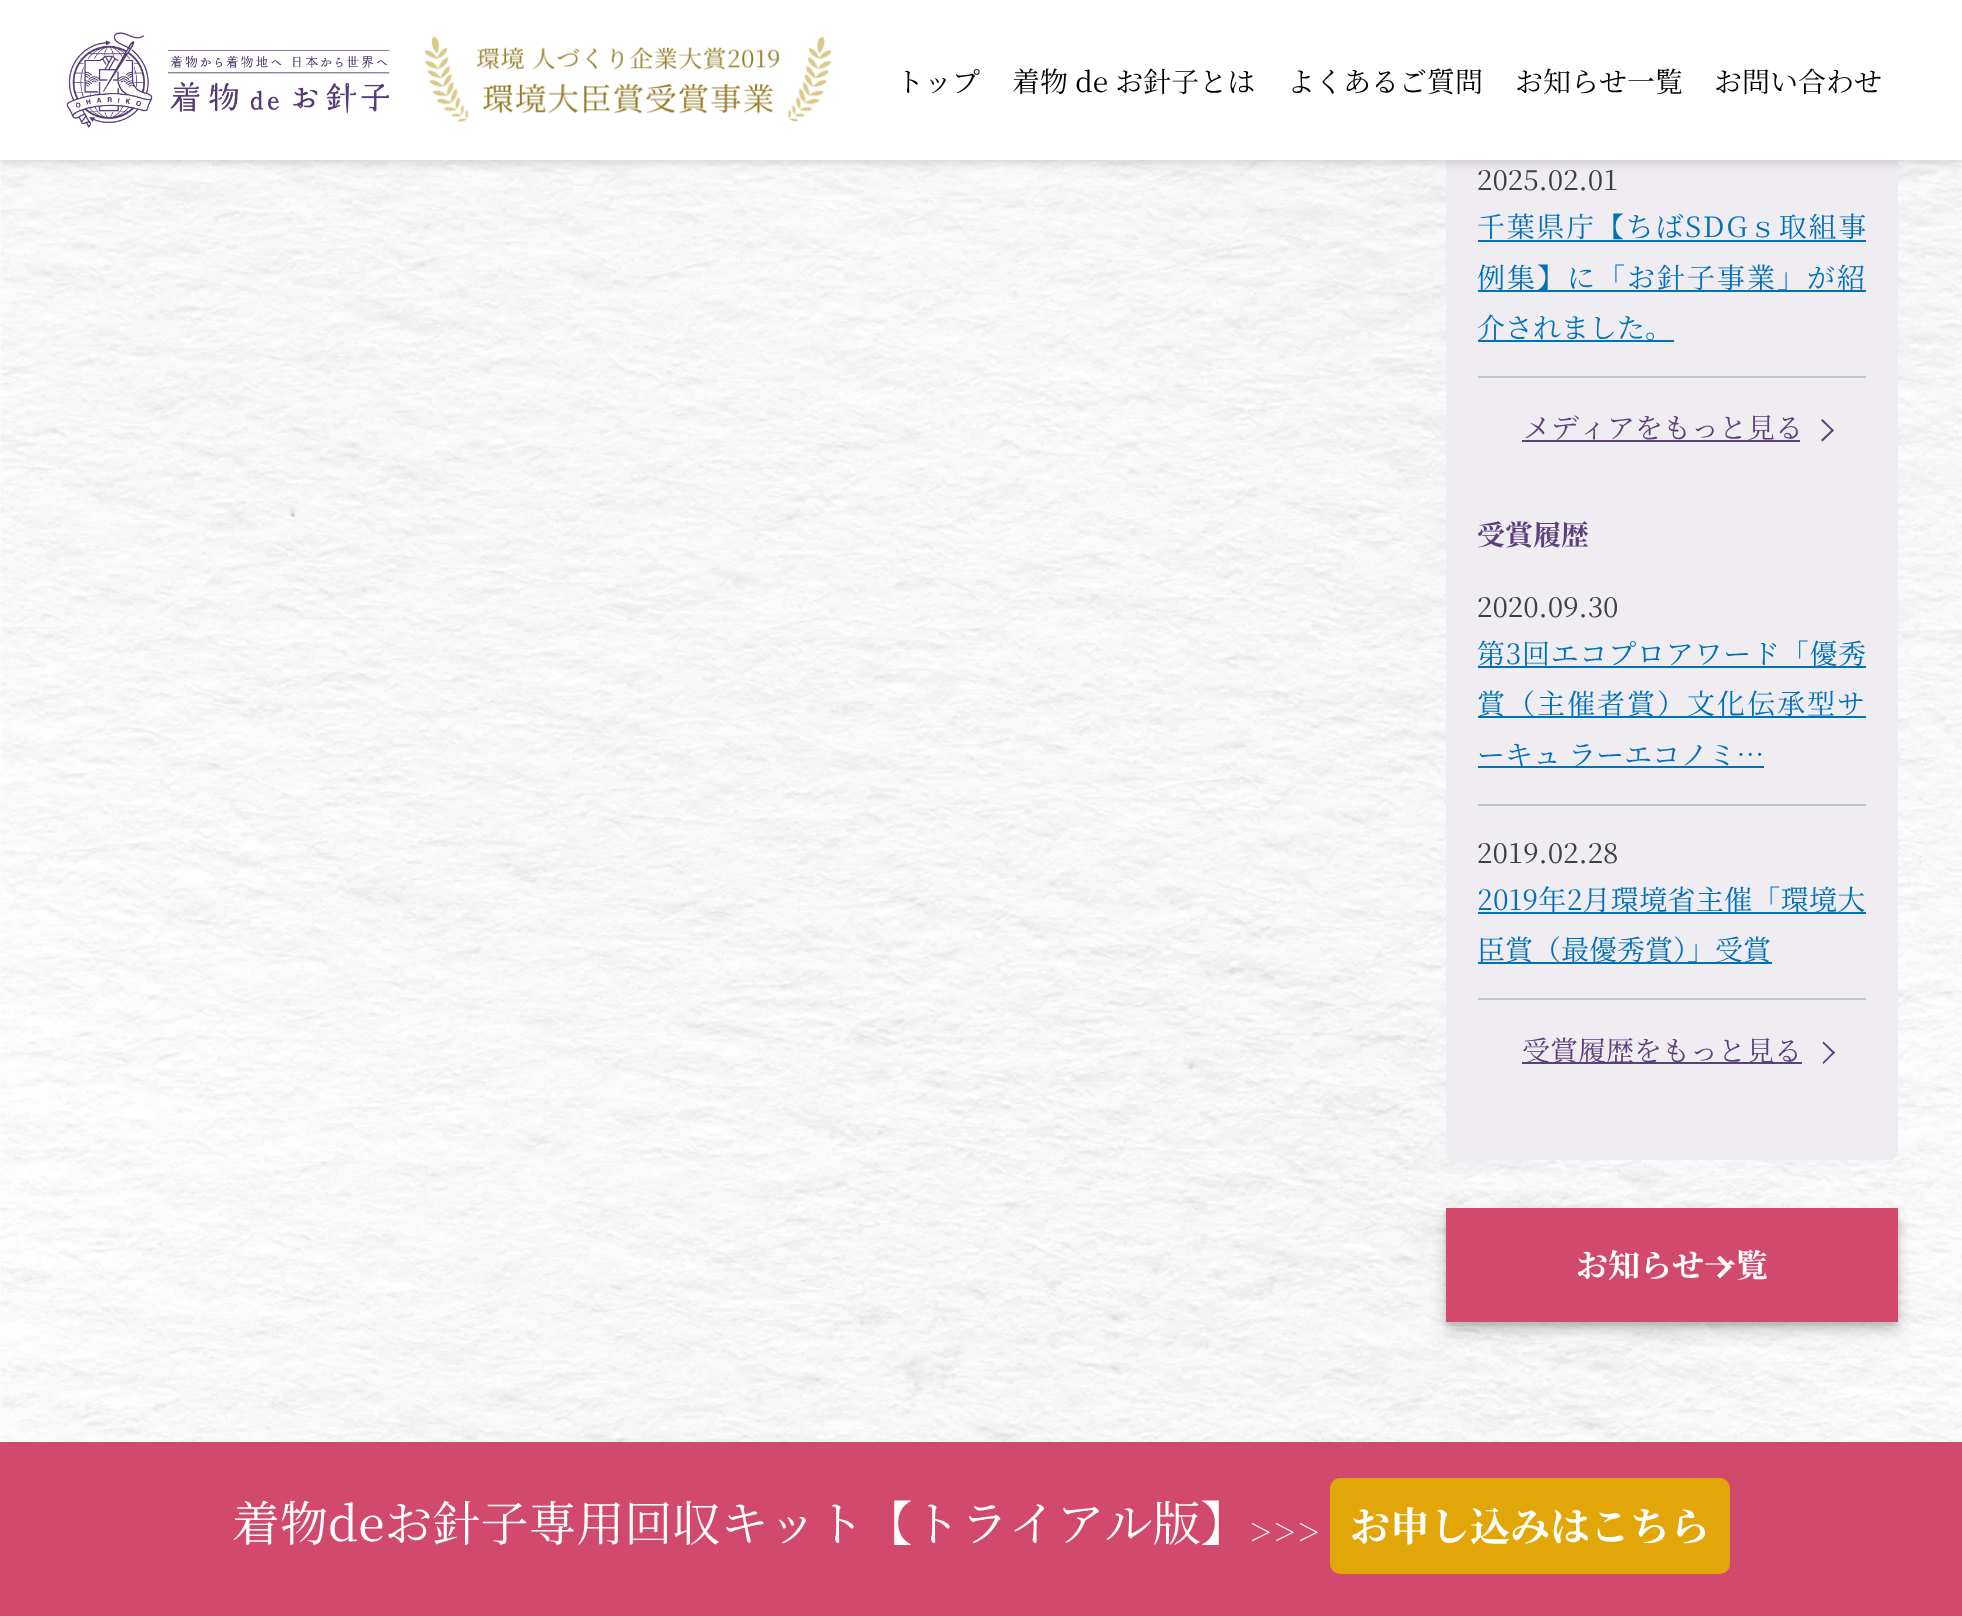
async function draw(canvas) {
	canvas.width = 1962;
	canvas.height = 1616;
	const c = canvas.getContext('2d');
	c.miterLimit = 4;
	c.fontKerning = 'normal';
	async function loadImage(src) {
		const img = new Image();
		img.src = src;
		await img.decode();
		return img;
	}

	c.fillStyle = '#fdfdfd';
	c.fillRect(0, 0, 1962, 1616);
	c.drawImage(await loadImage('img1.png'), 0, 160, 1962, 1282);
	c.fillStyle = '#efecf2';
	c.beginPath();
	c.roundRect(1446, -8, 452, 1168, 8);
	c.fill();
	c.fillStyle = '#0000001f';
	c.filter = 'blur(4px)';
	c.beginPath();
	c.rect(0, 4, 1962, 160);
	c.fill();
	c.filter = 'none';
	c.fillStyle = '#fff';
	c.fillRect(0, 0, 1962, 160);
	c.drawImage(await loadImage('img2.png'), 66, 32, 324, 96);
	c.drawImage(await loadImage('img3.png'), 424, 36, 408, 86);
	c.font = '28px Noto Serif JP';
	c.fillStyle = '#000';
	for (const [text, x, y] of [
		['トップ', 896, 92],
		['着物 de お針子とは', 1012, 92],
		['よくあるご質問', 1287, 92],
		['お知らせ一覧', 1515, 92],
		['お問い合わせ', 1714, 92],
	]) {
		c.fillText(text, x, y);
	}
	c.fillStyle = '#c7c7c7';
	c.fillRect(1478, 376, 388, 2);
	c.fillStyle = '#3f3f3f';
	c.fillText('2025.02.01', 1477, 190);
	c.letterSpacing = '1.75px';
	c.fillStyle = '#0071b8';
	c.fillText('千葉県庁【ちばSDGｓ取組事', 1477, 237);
	c.fillRect(1478, 240, 388, 2);
	c.fillRect(1478, 290, 388, 2);
	c.letterSpacing = '2px';
	c.fillText('例集】に「お針子事業」が紹', 1477, 288);
	c.fillRect(1478, 340, 196, 2);
	c.letterSpacing = '0px';
	c.fillText('介されました。', 1477, 338);
	c.fillStyle = '#5b407c';
	c.fillRect(1522, 440, 278, 2);
	c.fillText('メディアをもっと見る', 1523, 438);
	c.beginPath();
	c.moveTo(1822.5, 419);
	c.lineTo(1834, 430.5);
	c.lineTo(1832.5, 431.5);
	c.lineTo(1821, 420.5);
	c.closePath();
	c.fill();
	c.beginPath();
	c.moveTo(1832.5, 429);
	c.lineTo(1834, 430.5);
	c.lineTo(1822.5, 441.5);
	c.lineTo(1821, 440);
	c.closePath();
	c.fill();
	c.font = 'bold 28px Noto Serif JP';
	c.fillText('受賞履歴', 1477, 545);
	c.fillStyle = '#c7c7c7';
	c.fillRect(1478, 804, 388, 2);
	c.font = '28px Noto Serif JP';
	c.fillStyle = '#3f3f3f';
	c.fillText('2020.09.30', 1477, 617);
	c.fillStyle = '#0071b8';
	c.fillRect(1478, 666, 388, 2);
	c.letterSpacing = '0.75px';
	c.fillText('第3回エコプロアワード「優秀', 1477, 664);
	c.fillRect(1478, 716, 388, 2);
	c.letterSpacing = '2px';
	c.fillText('賞（主催者賞）文化伝承型サ', 1477, 714);
	c.fillRect(1478, 766, 286, 2);
	c.letterSpacing = '0px';
	c.fillText('ーキュ ラーエコノミ…', 1477, 765);
	c.fillStyle = '#c7c7c7';
	c.fillRect(1478, 998, 388, 2);
	c.fillStyle = '#3f3f3f';
	c.fillText('2019.02.28', 1477, 863);
	c.fillStyle = '#0071b8';
	c.fillRect(1478, 912, 388, 2);
	c.letterSpacing = '0.3px';
	c.fillText('2019年2月環境省主催「環境大', 1477, 910);
	c.fillRect(1478, 962, 294, 2);
	c.letterSpacing = '0px';
	c.fillText('臣賞（最優秀賞）」受賞', 1477, 960);
	c.fillStyle = '#5b407c';
	c.fillRect(1522, 1062, 280, 2);
	c.fillText('受賞履歴をもっと見る', 1522, 1061);
	c.beginPath();
	c.moveTo(1823.5, 1041.5);
	c.lineTo(1835, 1052.5);
	c.lineTo(1833.5, 1054);
	c.lineTo(1822.5, 1043);
	c.closePath();
	c.fill();
	c.beginPath();
	c.moveTo(1833.5, 1051.5);
	c.lineTo(1835, 1052.5);
	c.lineTo(1823.5, 1064);
	c.lineTo(1822.5, 1062.5);
	c.closePath();
	c.fill();
	c.fillStyle = '#0000001a';
	c.filter = 'blur(2px)';
	c.beginPath();
	c.rect(1446, 1212, 452, 114);
	c.fill();
	c.filter = 'none';
	c.fillStyle = '#00000033';
	c.filter = 'blur(8px)';
	c.beginPath();
	c.rect(1446, 1216, 452, 114);
	c.fill();
	c.filter = 'none';
	c.fillStyle = '#d1496d';
	c.fillRect(1446, 1208, 452, 114);
	c.font = 'bold 32px Noto Serif JP';
	c.fillStyle = '#fff';
	c.fillText('お知らせ一覧', 1576, 1277);
	c.beginPath();
	c.moveTo(1720, 1255.5);
	c.lineTo(1731.5, 1267);
	c.lineTo(1728.5, 1270);
	c.lineTo(1717, 1258.5);
	c.closePath();
	c.fill();
	c.beginPath();
	c.moveTo(1728.5, 1264);
	c.lineTo(1731.5, 1267);
	c.lineTo(1720, 1278.5);
	c.lineTo(1717, 1275.5);
	c.closePath();
	c.fill();
	c.fillStyle = '#d1496d';
	c.fillRect(0, 1442, 1962, 174);
	c.font = '48px Noto Serif JP';
	c.fillStyle = '#fff';
	c.fillText('着物deお針子専用回収キット【トライアル版】', 232, 1541);
	c.font = '24px Noto Serif JP';
	c.fillText('＞＞＞', 1249, 1541);
	c.fillStyle = '#e3a608';
	c.beginPath();
	c.roundRect(1330, 1478, 400, 96, 10);
	c.fill();
	c.font = 'bold 40px Noto Serif JP';
	c.fillStyle = '#fff';
	c.fillText('お申し込みはこちら', 1350, 1541);
}

draw(document.querySelector('canvas'));
